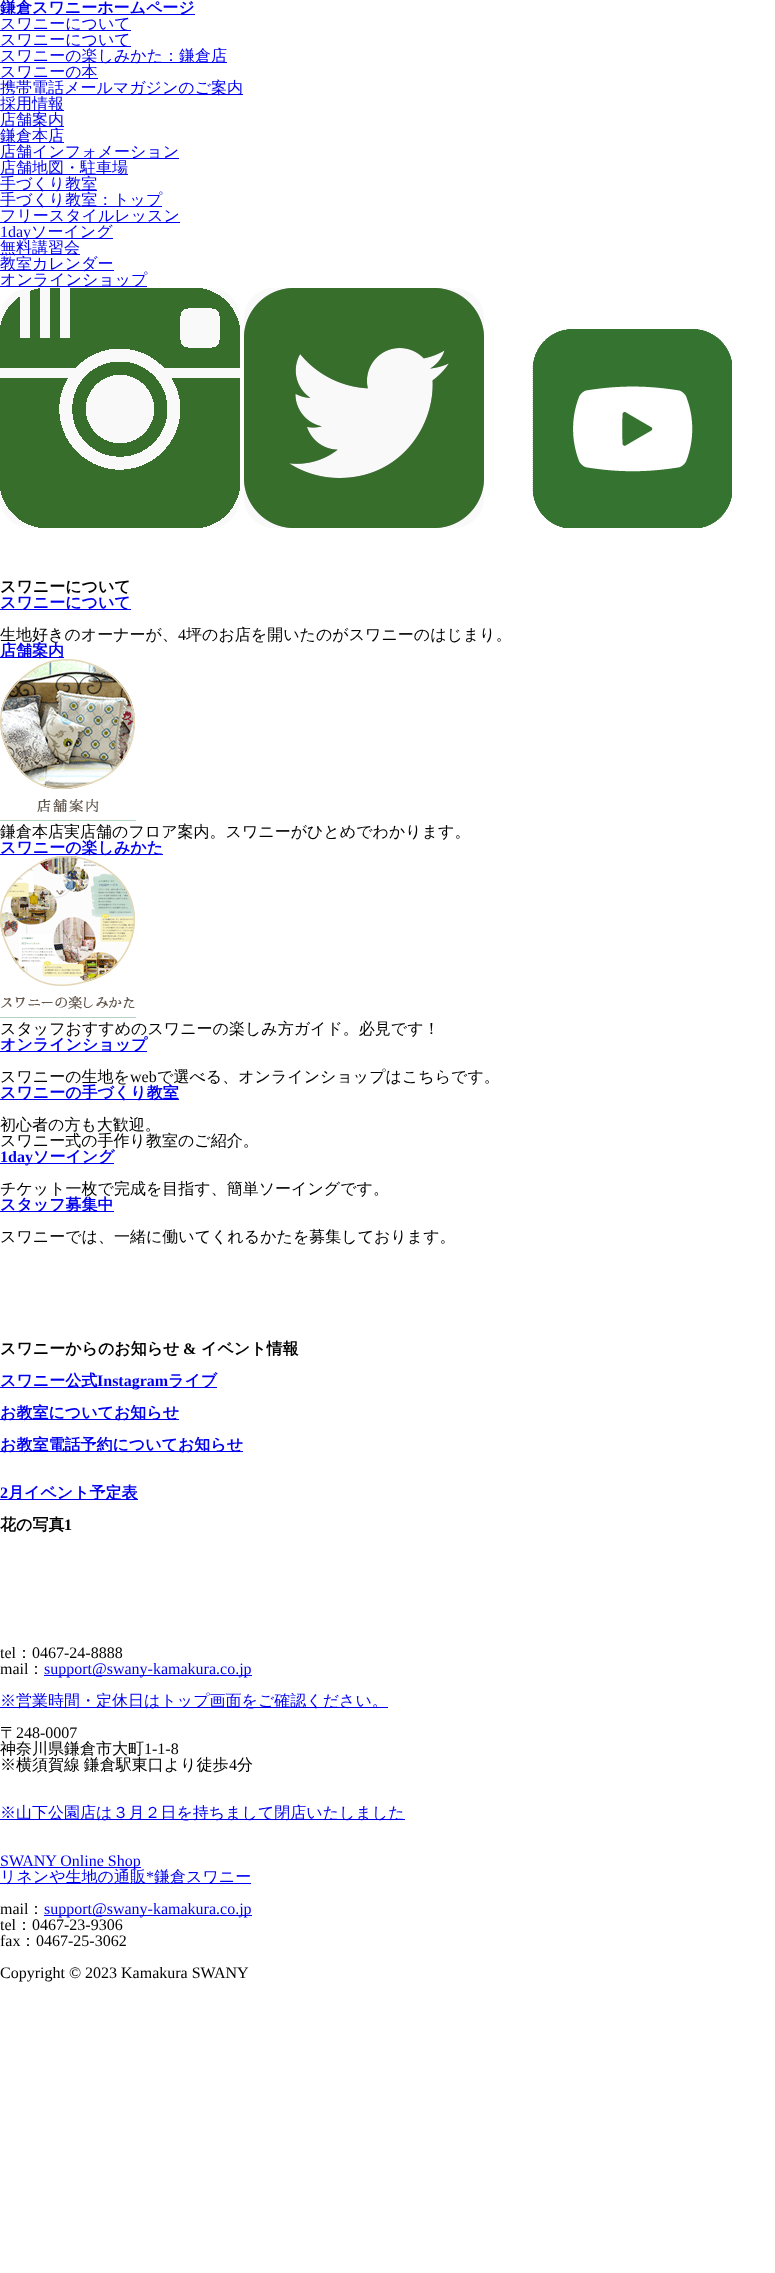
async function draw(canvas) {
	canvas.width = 775;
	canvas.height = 2273;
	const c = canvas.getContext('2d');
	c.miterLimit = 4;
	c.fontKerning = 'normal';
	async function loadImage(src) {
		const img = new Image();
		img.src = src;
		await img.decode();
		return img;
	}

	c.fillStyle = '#fff';
	c.fillRect(0, 0, 775, 2273);
	c.fillStyle = '#00e';
	c.fillRect(0, 14, 195, 1);
	c.font = 'bold 16px WenQuanYi Zen Hei';
	c.fillText('鎌倉スワニーホームページ', 0, 13);
	c.fillRect(0, 30, 131, 1);
	c.font = '500 16px WenQuanYi Zen Hei';
	c.fillText('スワニーについて', 0, 29);
	c.fillRect(0, 46, 131, 1);
	c.fillText('スワニーについて', 0, 45);
	c.fillRect(0, 62, 227, 1);
	c.fillText('スワニーの楽しみかた：鎌倉店', 0, 61);
	c.fillRect(0, 78, 98, 1);
	c.fillText('スワニーの本', 0, 77);
	c.fillRect(0, 94, 243, 1);
	c.fillText('携帯電話メールマガジンのご案内', 0, 93);
	c.fillRect(0, 110, 64, 1);
	c.fillText('採用情報', 0, 109);
	c.fillRect(0, 126, 64, 1);
	c.fillText('店舗案内', 0, 125);
	c.fillRect(0, 142, 64, 1);
	c.fillText('鎌倉本店', 0, 141);
	c.fillRect(0, 158, 179, 1);
	c.fillText('店舗インフォメーション', 0, 157);
	c.fillRect(0, 174, 128, 1);
	c.fillText('店舗地図・駐車場', 0, 173);
	c.fillRect(0, 190, 97, 1);
	c.fillText('手づくり教室', 0, 189);
	c.fillRect(0, 206, 162, 1);
	c.fillText('手づくり教室：トップ', 0, 205);
	c.fillRect(0, 222, 180, 1);
	c.fillText('フリースタイルレッスン', 0, 221);
	c.fillRect(0, 238, 113, 1);
	c.font = '16px Liberation Serif';
	c.fillText('1day', 0, 237);
	c.font = '500 16px WenQuanYi Zen Hei';
	c.fillText('ソーイング', 31, 237);
	c.fillRect(0, 254, 80, 1);
	c.fillText('無料講習会', 0, 253);
	c.fillRect(0, 270, 114, 1);
	c.fillText('教室カレンダー', 0, 269);
	c.fillRect(0, 286, 147, 1);
	c.fillText('オンラインショップ', 0, 285);
	c.drawImage(await loadImage('img1.png'), 0, 288, 240, 240);
	c.drawImage(await loadImage('img2.png'), 244, 288, 240, 240);
	c.drawImage(await loadImage('img3.png'), 532, 329, 200, 199);
	c.font = 'bold 16px WenQuanYi Zen Hei';
	c.fillStyle = '#000';
	c.fillText('スワニーについて', 0, 592);
	c.fillStyle = '#00e';
	c.fillRect(0, 609, 131, 1);
	c.fillText('スワニーについて', 0, 608);
	c.font = '500 16px WenQuanYi Zen Hei';
	c.fillStyle = '#000';
	c.fillText('生地好きのオーナーが、', 0, 640);
	c.font = '16px Liberation Serif';
	c.fillText('4', 178, 640);
	c.font = '500 16px WenQuanYi Zen Hei';
	c.fillText('坪のお店を開いたのがスワニーのはじまり。', 186, 640);
	c.fillStyle = '#00e';
	c.fillRect(0, 657, 64, 1);
	c.font = 'bold 16px WenQuanYi Zen Hei';
	c.fillText('店舗案内', 0, 656);
	c.drawImage(await loadImage('img4.png'), 0, 659, 136, 162);
	c.font = '500 16px WenQuanYi Zen Hei';
	c.fillStyle = '#000';
	c.fillText('鎌倉本店実店舗のフロア案内。スワニーがひとめでわかります。', 0, 837);
	c.fillStyle = '#00e';
	c.fillRect(0, 854, 163, 1);
	c.font = 'bold 16px WenQuanYi Zen Hei';
	c.fillText('スワニーの楽しみかた', 0, 853);
	c.drawImage(await loadImage('img5.png'), 0, 856, 136, 162);
	c.font = '500 16px WenQuanYi Zen Hei';
	c.fillStyle = '#000';
	c.fillText('スタッフおすすめのスワニーの楽しみ方ガイド。必見です！', 0, 1034);
	c.fillStyle = '#00e';
	c.fillRect(0, 1051, 147, 1);
	c.font = 'bold 16px WenQuanYi Zen Hei';
	c.fillText('オンラインショップ', 0, 1050);
	c.font = '500 16px WenQuanYi Zen Hei';
	c.fillStyle = '#000';
	c.fillText('スワニーの生地を', 0, 1082);
	c.font = '16px Liberation Serif';
	c.fillText('web', 130, 1082);
	c.font = '500 16px WenQuanYi Zen Hei';
	c.fillText('で選べる、オンラインショップはこちらです。', 157, 1082);
	c.fillStyle = '#00e';
	c.fillRect(0, 1099, 179, 1);
	c.font = 'bold 16px WenQuanYi Zen Hei';
	c.fillText('スワニーの手づくり教室', 0, 1098);
	c.font = '500 16px WenQuanYi Zen Hei';
	c.fillStyle = '#000';
	c.fillText('初心者の方も大歓迎。', 0, 1130);
	c.fillText('スワニー式の手作り教室のご紹介。', 0, 1146);
	c.fillStyle = '#00e';
	c.fillRect(0, 1163, 114, 1);
	c.font = 'bold 16px Liberation Serif';
	c.fillText('1day', 0, 1162);
	c.font = 'bold 16px WenQuanYi Zen Hei';
	c.fillText('ソーイング', 33, 1162);
	c.font = '500 16px WenQuanYi Zen Hei';
	c.fillStyle = '#000';
	c.fillText('チケット一枚で完成を目指す、簡単ソーイングです。', 0, 1194);
	c.fillStyle = '#00e';
	c.fillRect(0, 1211, 114, 1);
	c.font = 'bold 16px WenQuanYi Zen Hei';
	c.fillText('スタッフ募集中', 0, 1210);
	c.font = '500 16px WenQuanYi Zen Hei';
	c.fillStyle = '#000';
	c.fillText('スワニーでは、一緒に働いてくれるかたを募集しております。', 0, 1242);
	c.font = 'bold 16px WenQuanYi Zen Hei';
	c.fillText('スワニーからのお知らせ', 0, 1354);
	c.font = 'bold 16px Liberation Serif';
	c.fillText('&', 183, 1354);
	c.font = 'bold 16px WenQuanYi Zen Hei';
	c.fillText('イベント情報', 201, 1354);
	c.fillStyle = '#00e';
	c.fillRect(0, 1387, 217, 1);
	c.fillText('スワニー公式', 0, 1386);
	c.font = 'bold 16px Liberation Serif';
	c.fillText('Instagram', 97, 1386);
	c.font = 'bold 16px WenQuanYi Zen Hei';
	c.fillText('ライブ', 168, 1386);
	c.fillRect(0, 1419, 179, 1);
	c.fillText('お教室についてお知らせ', 0, 1418);
	c.fillRect(0, 1451, 243, 1);
	c.fillText('お教室電話予約についてお知らせ', 0, 1450);
	c.font = 'bold 16px Liberation Serif';
	c.fillText('2', 0, 1498);
	c.fillRect(0, 1499, 138, 1);
	c.font = 'bold 16px WenQuanYi Zen Hei';
	c.fillText('月イベント予定表', 8, 1498);
	c.fillStyle = '#000';
	c.fillText('花の写真', 0, 1530);
	c.font = 'bold 16px Liberation Serif';
	c.fillText('1', 64, 1530);
	c.font = '16px Liberation Serif';
	c.fillText('tel', 0, 1658);
	c.font = '500 16px WenQuanYi Zen Hei';
	c.fillText('：', 16, 1658);
	c.font = '16px Liberation Serif';
	c.fillText('0467-24-8888', 32, 1658);
	c.fillText('mail', 0, 1674);
	c.font = '500 16px WenQuanYi Zen Hei';
	c.fillText('：', 28, 1674);
	c.fillStyle = '#00e';
	c.fillRect(44, 1675, 208, 1);
	c.font = '16px Liberation Serif';
	c.fillText('support@swany-kamakura.co.jp', 44, 1674);
	c.fillRect(0, 1707, 388, 1);
	c.font = '500 16px WenQuanYi Zen Hei';
	c.fillText('※営業時間・定休日はトップ画面をご確認ください。', 0, 1706);
	c.fillStyle = '#000';
	c.fillText('〒', 0, 1738);
	c.font = '16px Liberation Serif';
	c.fillText('248-0007', 16, 1738);
	c.font = '500 16px WenQuanYi Zen Hei';
	c.fillText('神奈川県鎌倉市大町', 0, 1754);
	c.font = '16px Liberation Serif';
	c.fillText('1-1-8', 144, 1754);
	c.wordSpacing = '-1px';
	c.font = '500 16px WenQuanYi Zen Hei';
	c.fillText('※横須賀線 鎌倉駅東口より徒歩', 0, 1770);
	c.wordSpacing = '0px';
	c.font = '16px Liberation Serif';
	c.fillText('4', 229, 1770);
	c.font = '500 16px WenQuanYi Zen Hei';
	c.fillText('分', 237, 1770);
	c.fillStyle = '#00e';
	c.fillRect(0, 1819, 405, 1);
	c.fillText('※山下公園店は３月２日を持ちまして閉店いたしました', 0, 1818);
	c.fillRect(0, 1867, 141, 1);
	c.font = '16px Liberation Serif';
	c.fillText('SWANY Online Shop', 0, 1866);
	c.fillRect(0, 1883, 251, 1);
	c.font = '500 16px WenQuanYi Zen Hei';
	c.fillText('リネンや生地の通販', 0, 1882);
	c.font = '16px Liberation Serif';
	c.fillText('*', 146, 1882);
	c.font = '500 16px WenQuanYi Zen Hei';
	c.fillText('鎌倉スワニー', 154, 1882);
	c.font = '16px Liberation Serif';
	c.fillStyle = '#000';
	c.fillText('mail', 0, 1914);
	c.font = '500 16px WenQuanYi Zen Hei';
	c.fillText('：', 28, 1914);
	c.fillStyle = '#00e';
	c.fillRect(44, 1915, 208, 1);
	c.font = '16px Liberation Serif';
	c.fillText('support@swany-kamakura.co.jp', 44, 1914);
	c.fillStyle = '#000';
	c.fillText('tel', 0, 1930);
	c.font = '500 16px WenQuanYi Zen Hei';
	c.fillText('：', 16, 1930);
	c.font = '16px Liberation Serif';
	c.fillText('0467-23-9306', 32, 1930);
	c.fillText('fax', 0, 1946);
	c.font = '500 16px WenQuanYi Zen Hei';
	c.fillText('：', 20, 1946);
	c.font = '16px Liberation Serif';
	c.fillText('0467-25-3062', 36, 1946);
	c.fillText('Copyright © 2023 Kamakura SWANY', 0, 1978);
}

draw(document.querySelector('canvas'));
